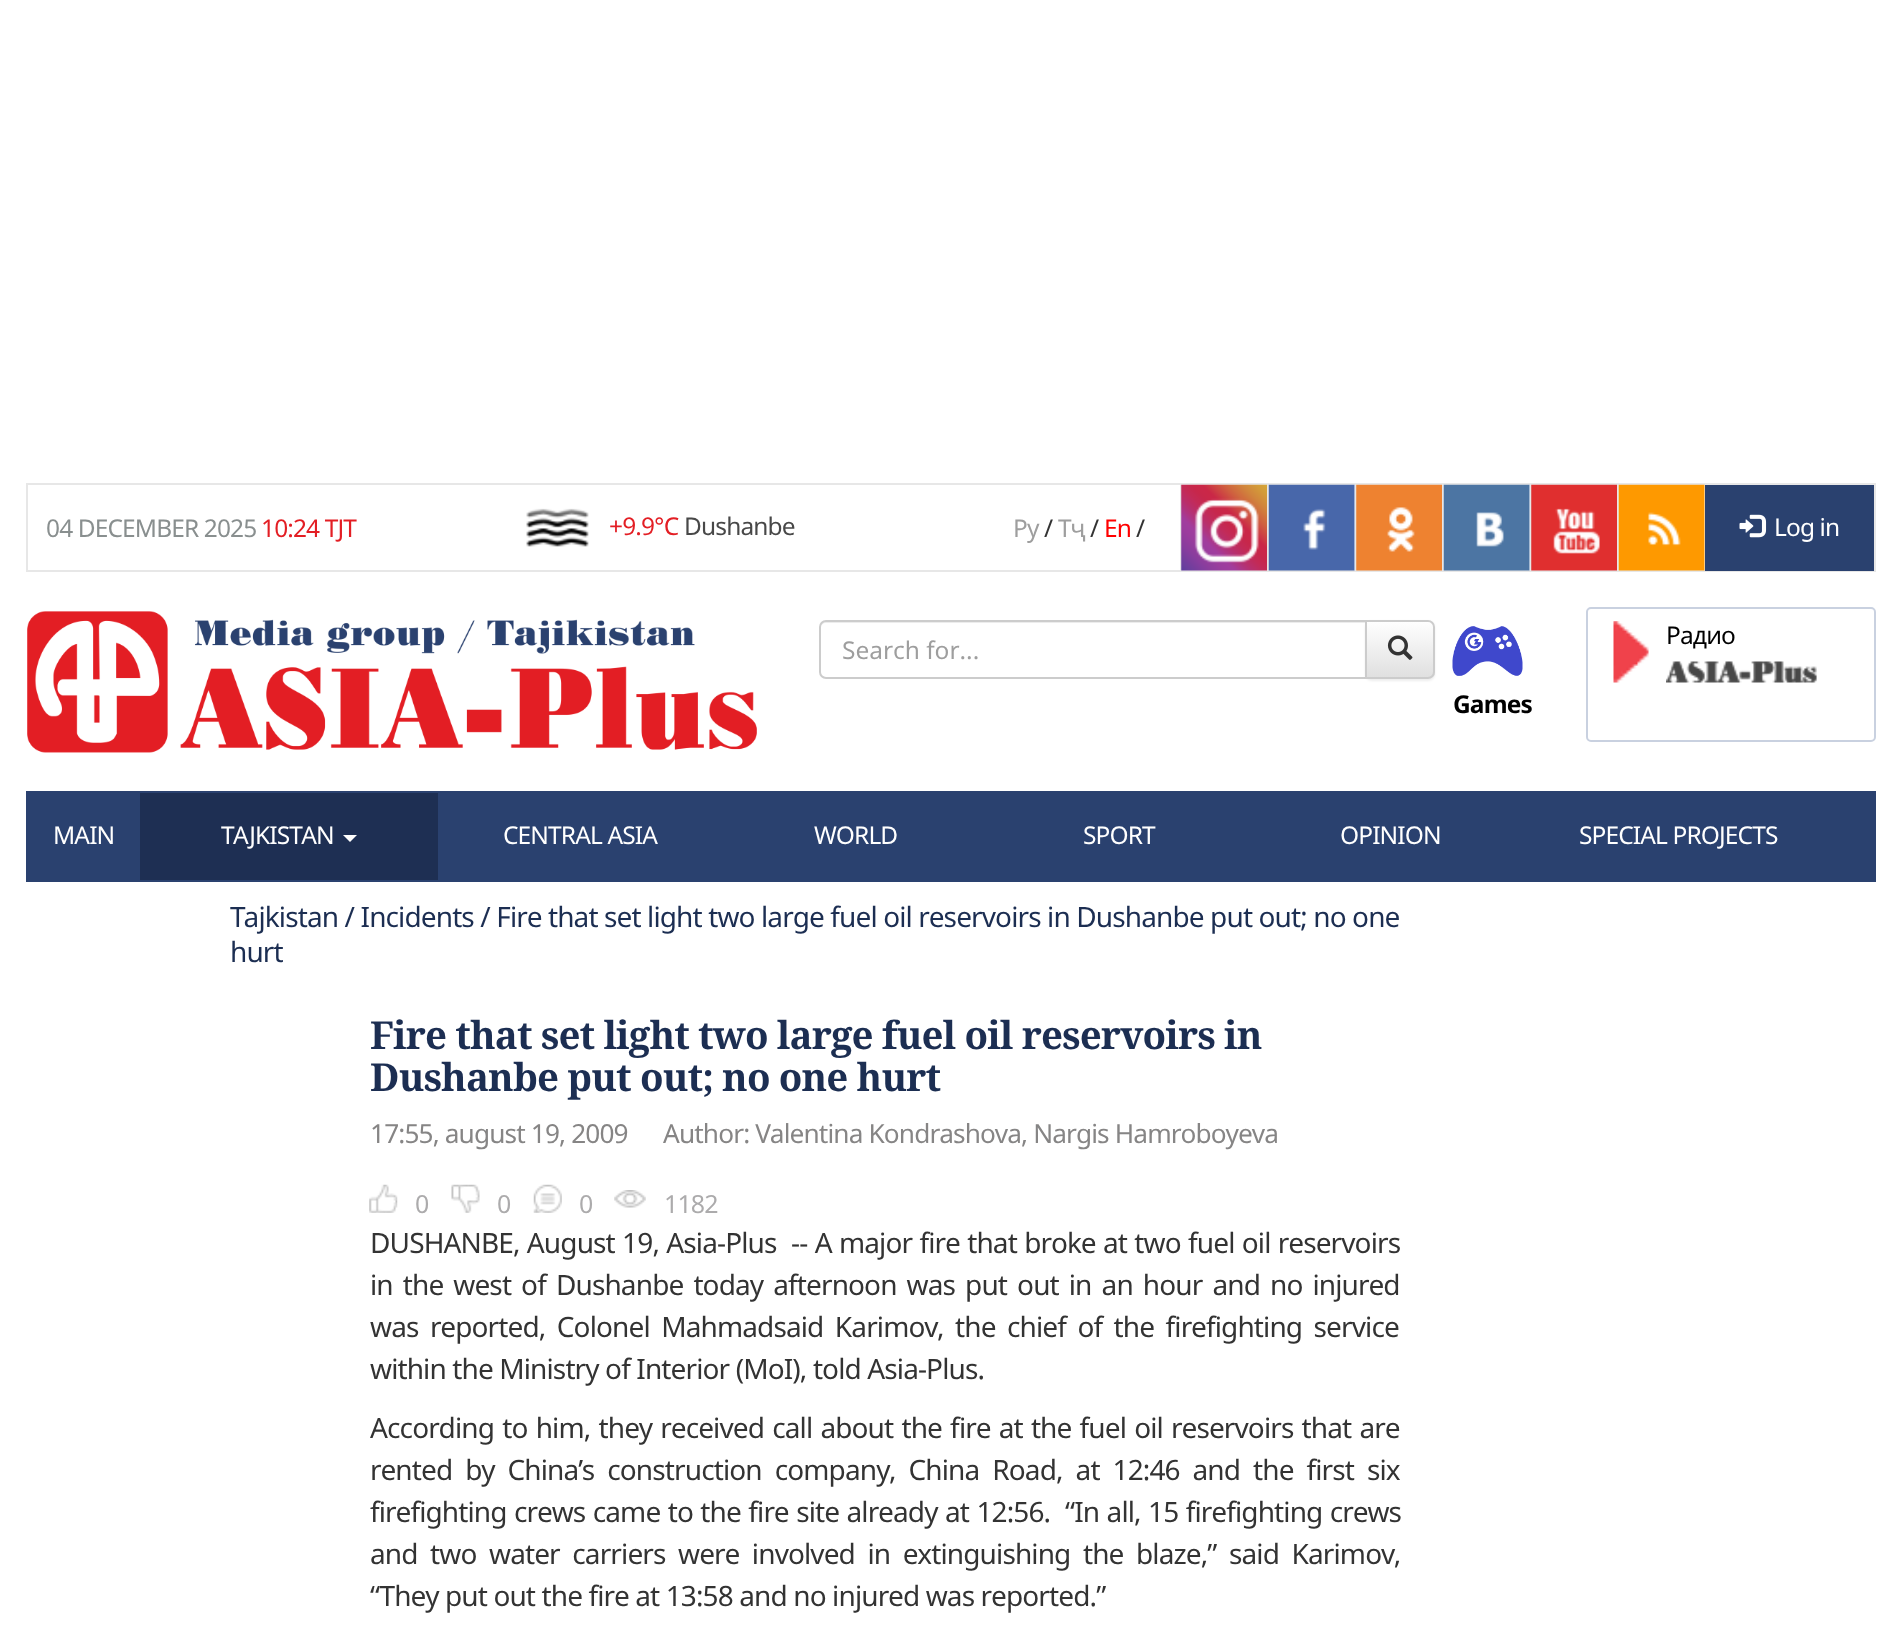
async function draw(canvas) {
	canvas.width = 1902;
	canvas.height = 1639;
	const c = canvas.getContext('2d');
	c.miterLimit = 4;
	c.fontKerning = 'normal';
	async function loadImage(src) {
		const img = new Image();
		img.src = src;
		await img.decode();
		return img;
	}
	let gradient;

	c.fillStyle = '#fff';
	c.fillRect(0, 0, 1902, 1639);
	c.strokeStyle = '#e7e7e7';
	c.lineWidth = 2;
	c.strokeRect(27, 484, 1848, 87);
	c.letterSpacing = '-0.88px';
	c.font = '24.5px Noto Sans';
	c.fillStyle = '#898f8f';
	c.fillText('04 DECEMBER 2025', 46, 537);
	c.fillStyle = '#e31e24';
	c.fillText('10:24 TJT', 261, 537);
	c.drawImage(await loadImage('img1.png'), 526, 508, 63, 39);
	c.fillText('+9.9°C', 609, 535);
	c.fillStyle = '#484848';
	c.fillText('Dushanbe', 684, 535);
	c.fillStyle = '#9e9e9e';
	c.fillText('Ру', 1013, 537);
	c.fillStyle = '#333';
	c.fillText('/', 1044, 537);
	c.fillStyle = '#9e9e9e';
	c.fillText('Тҷ', 1058, 537);
	c.fillStyle = '#333';
	c.fillText('/', 1090, 537);
	c.fillStyle = '#f00';
	c.fillText('En', 1104, 537);
	c.fillStyle = '#333';
	c.fillText('/', 1136, 537);
	c.fillStyle = '#e7e7e7';
	c.fillRect(1180, 485, 2, 87);
	c.drawImage(await loadImage('img2.png'), 1181, 484, 86, 87);
	c.fillRect(1267, 485, 2, 87);
	c.drawImage(await loadImage('img3.png'), 1268, 484, 87, 87);
	c.fillRect(1355, 485, 2, 87);
	c.drawImage(await loadImage('img4.png'), 1356, 484, 86, 87);
	c.fillRect(1442, 485, 2, 87);
	c.drawImage(await loadImage('img5.png'), 1443, 484, 87, 87);
	c.fillRect(1530, 485, 2, 87);
	c.drawImage(await loadImage('img6.png'), 1531, 484, 86, 87);
	c.fillRect(1617, 485, 2, 87);
	c.drawImage(await loadImage('img7.png'), 1618, 484, 87, 87);
	c.fillStyle = '#2a416f';
	c.fillRect(1705, 485, 169, 86);
	c.drawImage(await loadImage('img8.png'), 1739, 514, 28, 24);
	c.fillStyle = '#fff';
	c.fillText('Log in', 1774, 536);
	c.drawImage(await loadImage('img9.png'), 27, 611, 730, 142);
	c.fillStyle = '#ececec';
	c.beginPath();
	c.moveTo(826, 623);
	c.lineTo(1365, 623);
	c.lineTo(1365, 621);
	c.lineTo(826, 621);
	c.bezierCurveTo(822, 621, 821, 625, 821, 628);
	c.bezierCurveTo(821, 625, 823, 623, 826, 623);
	c.closePath();
	c.fill();
	c.beginPath();
	c.roundRect(820, 621, 546, 57, [6, 0, 0, 6]);
	c.strokeStyle = '#ccc';
	c.stroke();
	c.letterSpacing = '0px';
	c.fillStyle = '#9e9e9e';
	c.fillText('Search for...', 842, 659);
	c.fillStyle = '#00000012';
	c.filter = 'blur(1px)';
	c.beginPath();
	c.roundRect(1365, 621, 70, 60, 7);
	c.fill();
	c.filter = 'none';
	c.save();
	c.beginPath();
	c.roundRect(1365, 620, 70, 59, [0, 7, 7, 0]);
	c.clip();
	gradient = c.createLinearGradient(1400, 621, 1400, 677);
	gradient.addColorStop(0, '#fff');
	gradient.addColorStop(1, '#e0e0e0');
	c.fillStyle = gradient;
	c.fillRect(1367, 621, 68, 56);
	c.restore();
	c.beginPath();
	c.roundRect(1366, 621, 68, 57, [0, 6, 6, 0]);
	c.stroke();
	c.drawImage(await loadImage('img10.png'), 1387, 635, 26, 25);
	c.drawImage(await loadImage('img11.png'), 1452, 626, 71, 50);
	c.beginPath();
	c.roundRect(1587, 608, 288, 133, 4);
	c.strokeStyle = '#c9d1e0';
	c.stroke();
	c.drawImage(await loadImage('img12.png'), 1613, 621, 36, 62);
	c.letterSpacing = '-0.88px';
	c.fillStyle = '#000';
	c.fillText('Радио', 1666, 644);
	c.drawImage(await loadImage('img13.png'), 1666, 661, 151, 22);
	c.font = 'bold 24.5px Noto Sans';
	c.fillText('Games', 1453, 713);
	c.fillStyle = '#2a416f';
	c.fillRect(26, 791, 1850, 91);
	c.font = '24.5px Noto Sans';
	c.fillStyle = '#fff';
	c.fillText('MAIN', 53, 844);
	c.fillStyle = '#1e2f53';
	c.fillRect(140, 793, 298, 87);
	c.fillStyle = '#fff';
	c.fillText('TAJKISTAN', 221, 844);
	c.beginPath();
	c.moveTo(343, 835);
	c.lineTo(357, 835);
	c.lineTo(350, 842);
	c.closePath();
	c.fill();
	for (const [text, x, y] of [
		['CENTRAL ASIA', 503, 844],
		['WORLD', 814, 844],
		['SPORT', 1083, 844],
		['OPINION', 1340, 844],
		['SPECIAL PROJECTS', 1579, 844],
	]) {
		c.fillText(text, x, y);
	}
	c.font = '28px Noto Sans';
	c.fillStyle = '#1c2e52';
	c.fillText('Tajkistan / Incidents / Fire that set light two large fuel oil reservoirs in Dushanbe put out; no one', 230, 927);
	c.fillText('hurt', 230, 962);
	c.font = 'bold 38.5px Noto Serif';
	c.fillText('Fire that set light two large fuel oil reservoirs in', 370, 1049);
	c.fillText('Dushanbe put out; no one hurt', 370, 1091);
	c.font = '26.25px Noto Sans';
	c.fillStyle = '#868585';
	c.fillText('17:55, august 19, 2009', 370, 1143);
	c.fillText('Author: Valentina Kondrashova, Nargis Hamroboyeva', 663, 1143);
	c.drawImage(await loadImage('img14.png'), 369, 1184, 29, 29);
	c.font = '25px Noto Sans';
	c.fillStyle = '#acabac';
	c.fillText('0', 415, 1213);
	c.drawImage(await loadImage('img15.png'), 451, 1184, 29, 29);
	c.fillText('0', 497, 1213);
	c.drawImage(await loadImage('img16.png'), 533, 1184, 29, 29);
	c.fillText('0', 579, 1213);
	c.drawImage(await loadImage('img17.png'), 614, 1190, 32, 18);
	c.fillText('1182', 664, 1213);
	c.wordSpacing = '0.9px';
	c.font = '28px Noto Sans';
	c.fillStyle = '#333';
	c.fillText('DUSHANBE, August 19, Asia-Plus  -- A major fire that broke at two fuel oil reservoirs', 370, 1253);
	c.wordSpacing = '3.6px';
	c.fillText('in the west of Dushanbe today afternoon was put out in an hour and no injured', 370, 1295);
	c.wordSpacing = '5px';
	c.fillText('was reported, Colonel Mahmadsaid Karimov, the chief of the firefighting service', 370, 1337);
	c.wordSpacing = '0px';
	c.fillText('within the Ministry of Interior (MoI), told Asia-Plus.', 370, 1379);
	c.wordSpacing = '1.75px';
	c.fillText('According to him, they received call about the fire at the fuel oil reservoirs that are', 370, 1438);
	c.wordSpacing = '6.5px';
	c.fillText('rented by China’s construction company, China Road, at 12:46 and the first six', 370, 1480);
	c.wordSpacing = '1px';
	c.fillText('firefighting crews came to the fire site already at 12:56.  “In all, 15 firefighting crews', 370, 1522);
	c.wordSpacing = '6.1px';
	c.fillText('and two water carriers were involved in extinguishing the blaze,” said Karimov,', 370, 1564);
	c.wordSpacing = '0px';
	c.fillText('“They put out the fire at 13:58 and no injured was reported.”', 370, 1606);
}

draw(document.querySelector('canvas'));
